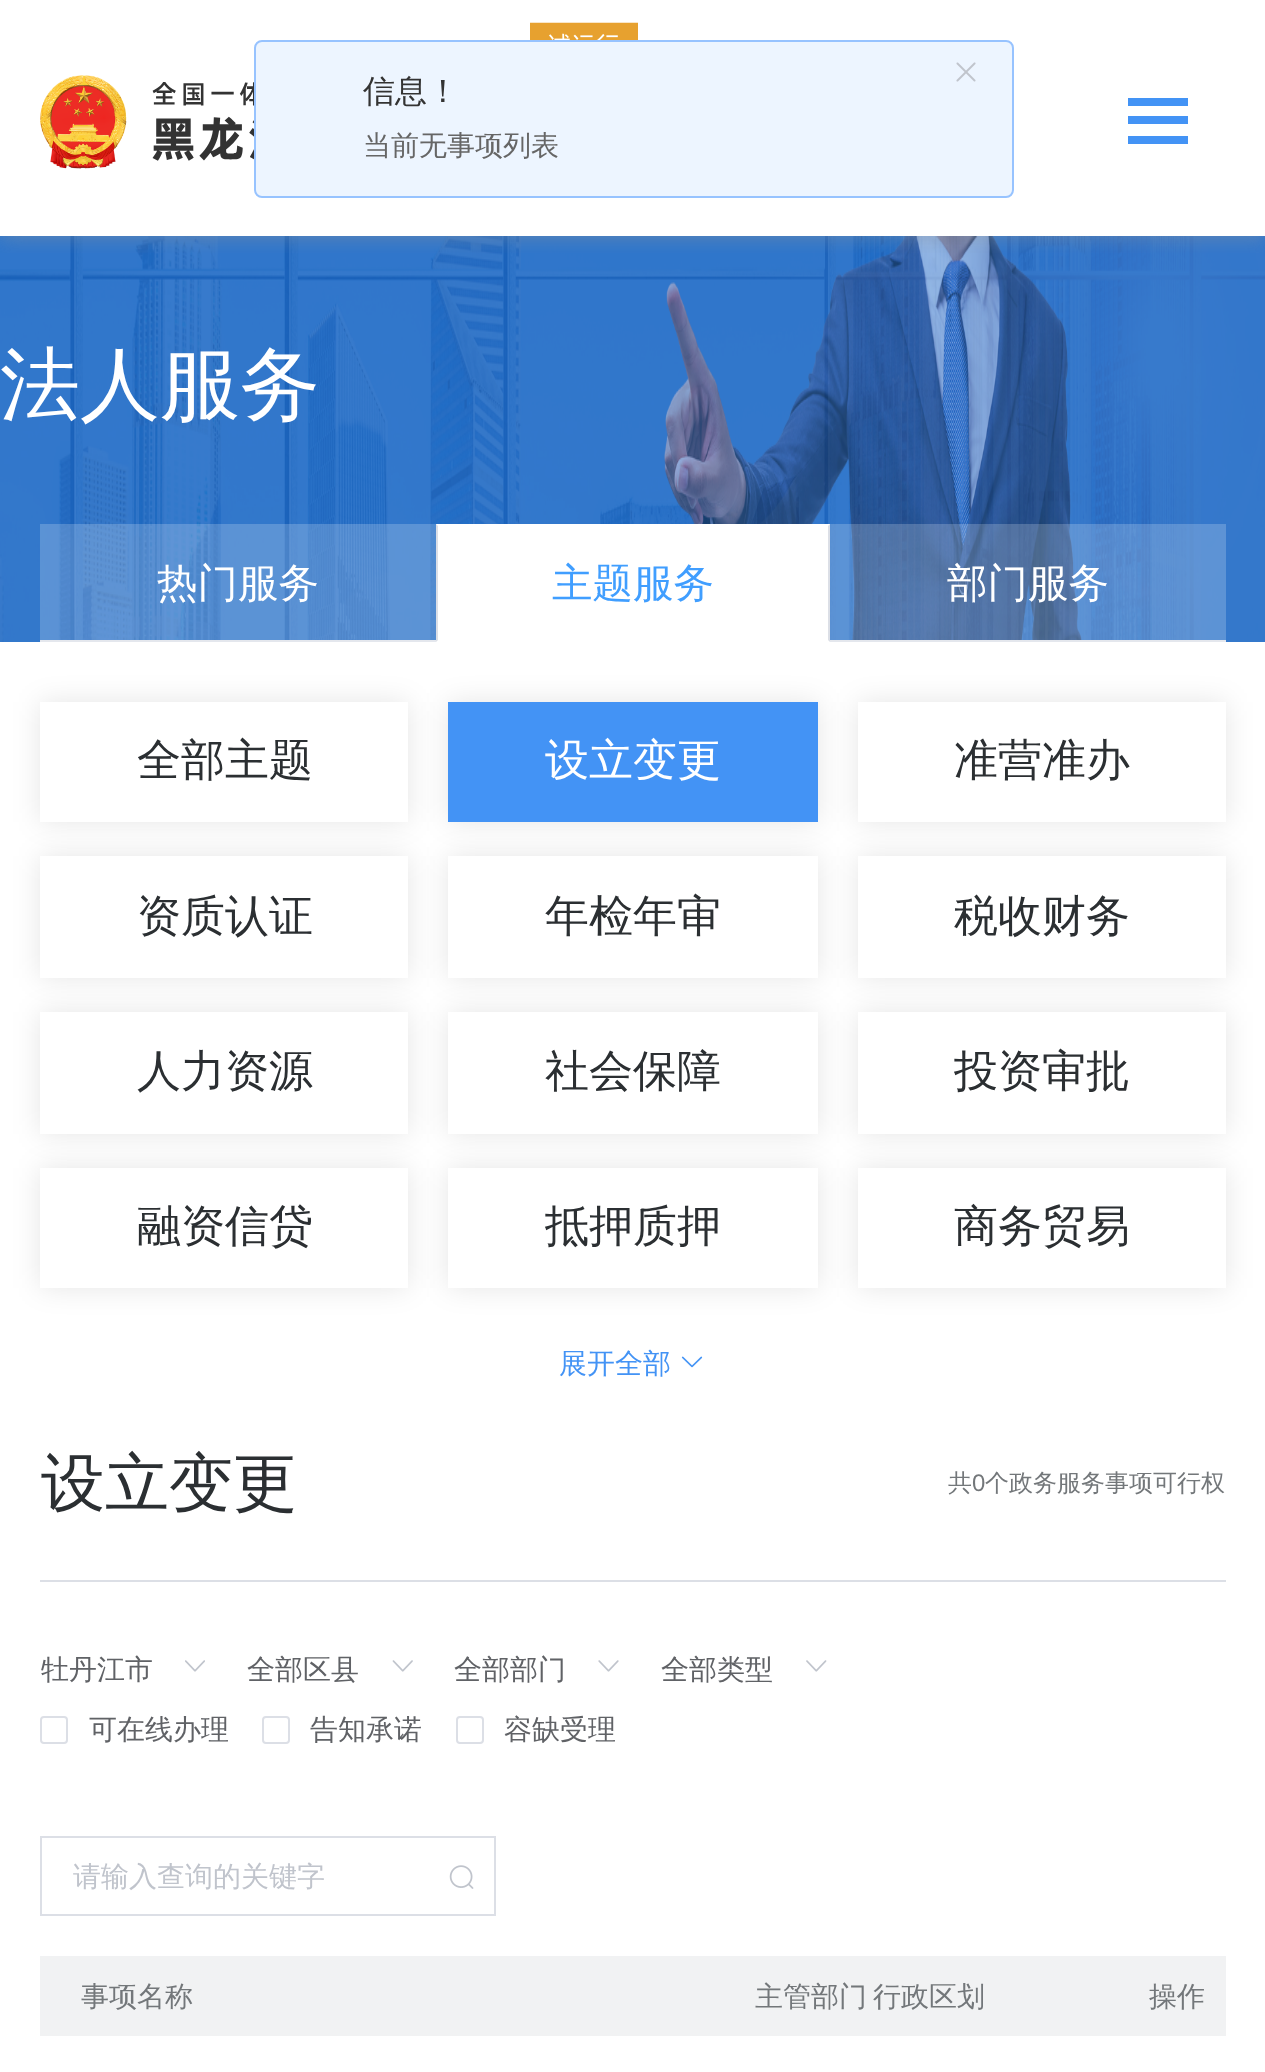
async function draw(canvas) {
	canvas.width = 1265;
	canvas.height = 2072;
	const c = canvas.getContext('2d');
	c.miterLimit = 4;
	c.fontKerning = 'normal';
	async function loadImage(src) {
		const img = new Image();
		img.src = src;
		await img.decode();
		return img;
	}

	c.fillStyle = '#fff';
	c.fillRect(0, 0, 1265, 2072);
	c.drawImage(await loadImage('img4.png'), 0, 236, 1265, 406);
	c.save();
	c.beginPath();
	c.rect(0, 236, 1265, 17);
	c.clip();
	c.fillStyle = '#99999980';
	c.filter = 'blur(10px)';
	c.beginPath();
	c.rect(0, 0, 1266, 236);
	c.fill();
	c.filter = 'none';
	c.restore();
	c.fillStyle = '#edf5ff';
	c.beginPath();
	c.roundRect(255, 41, 758, 156, 7);
	c.fill();
	c.strokeStyle = '#97c3ff';
	c.lineWidth = 2;
	c.stroke();
	c.drawImage(await loadImage('img1.png'), 956, 62, 20, 20);
	c.font = '500 32px WenQuanYi Zen Hei';
	c.fillStyle = '#333';
	c.fillText('信息！', 363, 102);
	c.font = '500 28px WenQuanYi Zen Hei';
	c.fillStyle = '#666';
	c.fillText('当前无事项列表', 363, 155);
	c.drawImage(await loadImage('img2.png'), 530, 22, 108, 18);
	c.drawImage(await loadImage('img3.png'), 40, 75, 214, 94);
	for (const [x, y, w, h, color] of [
		[1128, 98, 60, 8, '#4393f5'],
		[1128, 116, 60, 8, '#4393f5'],
		[1128, 136, 60, 8, '#4393f5'],
	]) {
		c.fillStyle = color;
		c.fillRect(x, y, w, h);
	}
	c.font = '500 80px WenQuanYi Zen Hei';
	c.fillStyle = '#fff';
	c.fillText('法人服务', 0, 412);
	c.fillStyle = '#ffffff33';
	c.fillRect(40, 524, 1186, 116);
	c.fillStyle = '#e4e7ed';
	c.fillRect(40, 640, 1186, 2);
	c.font = '500 40.5px WenQuanYi Zen Hei';
	c.fillStyle = '#fff';
	c.fillText('热门服务', 157, 597);
	c.fillRect(436, 524, 394, 118);
	c.fillStyle = '#dcdfe6';
	c.beginPath();
	c.moveTo(830, 524);
	c.lineTo(830, 642);
	c.lineTo(828, 640);
	c.lineTo(828, 526);
	c.closePath();
	c.fill();
	c.beginPath();
	c.moveTo(436, 642);
	c.lineTo(436, 524);
	c.lineTo(438, 526);
	c.lineTo(438, 640);
	c.closePath();
	c.fill();
	c.fillStyle = '#409eff';
	c.fillText('主题服务', 552, 597);
	c.fillStyle = '#fff';
	c.fillText('部门服务', 947, 597);
	c.save();
	c.beginPath();
	c.moveTo(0, 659);
	c.lineTo(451, 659);
	c.lineTo(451, 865);
	c.lineTo(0, 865);
	c.closePath();
	c.moveTo(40, 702);
	c.lineTo(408, 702);
	c.lineTo(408, 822);
	c.lineTo(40, 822);
	c.closePath();
	c.clip('evenodd');
	c.fillStyle = '#0000001a';
	c.filter = 'blur(14px)';
	c.beginPath();
	c.rect(40, 702, 368, 120);
	c.fill();
	c.filter = 'none';
	c.restore();
	c.font = '500 44px WenQuanYi Zen Hei';
	c.fillStyle = '#2b2f32';
	c.fillText('全部主题', 137, 775);
	c.fillStyle = '#0000001a';
	c.filter = 'blur(14px)';
	c.beginPath();
	c.rect(448, 702, 370, 120);
	c.fill();
	c.filter = 'none';
	c.fillStyle = '#4393f5';
	c.fillRect(448, 702, 370, 120);
	c.fillStyle = '#fff';
	c.fillText('设立变更', 545, 775);
	c.save();
	c.beginPath();
	c.moveTo(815, 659);
	c.lineTo(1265, 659);
	c.lineTo(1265, 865);
	c.lineTo(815, 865);
	c.closePath();
	c.moveTo(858, 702);
	c.lineTo(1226, 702);
	c.lineTo(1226, 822);
	c.lineTo(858, 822);
	c.closePath();
	c.clip('evenodd');
	c.fillStyle = '#0000001a';
	c.filter = 'blur(14px)';
	c.beginPath();
	c.rect(858, 702, 368, 120);
	c.fill();
	c.filter = 'none';
	c.restore();
	c.fillStyle = '#2b2f32';
	c.fillText('准营准办', 954, 775);
	c.save();
	c.beginPath();
	c.moveTo(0, 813);
	c.lineTo(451, 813);
	c.lineTo(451, 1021);
	c.lineTo(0, 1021);
	c.closePath();
	c.moveTo(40, 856);
	c.lineTo(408, 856);
	c.lineTo(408, 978);
	c.lineTo(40, 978);
	c.closePath();
	c.clip('evenodd');
	c.fillStyle = '#0000001a';
	c.filter = 'blur(14px)';
	c.beginPath();
	c.rect(40, 856, 368, 122);
	c.fill();
	c.filter = 'none';
	c.restore();
	c.fillText('资质认证', 137, 931);
	c.save();
	c.beginPath();
	c.moveTo(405, 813);
	c.lineTo(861, 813);
	c.lineTo(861, 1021);
	c.lineTo(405, 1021);
	c.closePath();
	c.moveTo(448, 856);
	c.lineTo(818, 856);
	c.lineTo(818, 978);
	c.lineTo(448, 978);
	c.closePath();
	c.clip('evenodd');
	c.fillStyle = '#0000001a';
	c.filter = 'blur(14px)';
	c.beginPath();
	c.rect(448, 856, 370, 122);
	c.fill();
	c.filter = 'none';
	c.restore();
	c.fillText('年检年审', 545, 931);
	c.save();
	c.beginPath();
	c.moveTo(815, 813);
	c.lineTo(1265, 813);
	c.lineTo(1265, 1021);
	c.lineTo(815, 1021);
	c.closePath();
	c.moveTo(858, 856);
	c.lineTo(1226, 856);
	c.lineTo(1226, 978);
	c.lineTo(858, 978);
	c.closePath();
	c.clip('evenodd');
	c.fillStyle = '#0000001a';
	c.filter = 'blur(14px)';
	c.beginPath();
	c.rect(858, 856, 368, 122);
	c.fill();
	c.filter = 'none';
	c.restore();
	c.fillText('税收财务', 954, 931);
	c.save();
	c.beginPath();
	c.moveTo(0, 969);
	c.lineTo(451, 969);
	c.lineTo(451, 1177);
	c.lineTo(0, 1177);
	c.closePath();
	c.moveTo(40, 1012);
	c.lineTo(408, 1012);
	c.lineTo(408, 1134);
	c.lineTo(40, 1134);
	c.closePath();
	c.clip('evenodd');
	c.fillStyle = '#0000001a';
	c.filter = 'blur(14px)';
	c.beginPath();
	c.rect(40, 1012, 368, 122);
	c.fill();
	c.filter = 'none';
	c.restore();
	c.fillText('人力资源', 137, 1086);
	c.save();
	c.beginPath();
	c.moveTo(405, 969);
	c.lineTo(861, 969);
	c.lineTo(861, 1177);
	c.lineTo(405, 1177);
	c.closePath();
	c.moveTo(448, 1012);
	c.lineTo(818, 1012);
	c.lineTo(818, 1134);
	c.lineTo(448, 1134);
	c.closePath();
	c.clip('evenodd');
	c.fillStyle = '#0000001a';
	c.filter = 'blur(14px)';
	c.beginPath();
	c.rect(448, 1012, 370, 122);
	c.fill();
	c.filter = 'none';
	c.restore();
	c.fillText('社会保障', 545, 1086);
	c.save();
	c.beginPath();
	c.moveTo(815, 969);
	c.lineTo(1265, 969);
	c.lineTo(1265, 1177);
	c.lineTo(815, 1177);
	c.closePath();
	c.moveTo(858, 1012);
	c.lineTo(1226, 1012);
	c.lineTo(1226, 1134);
	c.lineTo(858, 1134);
	c.closePath();
	c.clip('evenodd');
	c.fillStyle = '#0000001a';
	c.filter = 'blur(14px)';
	c.beginPath();
	c.rect(858, 1012, 368, 122);
	c.fill();
	c.filter = 'none';
	c.restore();
	c.fillText('投资审批', 954, 1086);
	c.save();
	c.beginPath();
	c.moveTo(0, 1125);
	c.lineTo(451, 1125);
	c.lineTo(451, 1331);
	c.lineTo(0, 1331);
	c.closePath();
	c.moveTo(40, 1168);
	c.lineTo(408, 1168);
	c.lineTo(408, 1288);
	c.lineTo(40, 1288);
	c.closePath();
	c.clip('evenodd');
	c.fillStyle = '#0000001a';
	c.filter = 'blur(14px)';
	c.beginPath();
	c.rect(40, 1168, 368, 120);
	c.fill();
	c.filter = 'none';
	c.restore();
	c.fillText('融资信贷', 137, 1241);
	c.save();
	c.beginPath();
	c.moveTo(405, 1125);
	c.lineTo(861, 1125);
	c.lineTo(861, 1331);
	c.lineTo(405, 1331);
	c.closePath();
	c.moveTo(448, 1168);
	c.lineTo(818, 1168);
	c.lineTo(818, 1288);
	c.lineTo(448, 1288);
	c.closePath();
	c.clip('evenodd');
	c.fillStyle = '#0000001a';
	c.filter = 'blur(14px)';
	c.beginPath();
	c.rect(448, 1168, 370, 120);
	c.fill();
	c.filter = 'none';
	c.restore();
	c.fillText('抵押质押', 545, 1241);
	c.save();
	c.beginPath();
	c.moveTo(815, 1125);
	c.lineTo(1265, 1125);
	c.lineTo(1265, 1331);
	c.lineTo(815, 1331);
	c.closePath();
	c.moveTo(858, 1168);
	c.lineTo(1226, 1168);
	c.lineTo(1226, 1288);
	c.lineTo(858, 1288);
	c.closePath();
	c.clip('evenodd');
	c.fillStyle = '#0000001a';
	c.filter = 'blur(14px)';
	c.beginPath();
	c.rect(858, 1168, 368, 120);
	c.fill();
	c.filter = 'none';
	c.restore();
	c.fillText('商务贸易', 954, 1241);
	c.font = '500 28px WenQuanYi Zen Hei';
	c.fillStyle = '#4393f5';
	c.fillText('展开全部', 559, 1373);
	c.drawImage(await loadImage('img5.png'), 681, 1356, 22, 12);
	c.font = '500 64px WenQuanYi Zen Hei';
	c.fillStyle = '#2b2f32';
	c.fillText('设立变更', 41, 1505);
	c.font = '500 24px WenQuanYi Zen Hei';
	c.fillStyle = '#73777a';
	c.fillText('共', 948, 1491);
	c.font = '24px Liberation Sans';
	c.fillText('0', 972, 1491);
	c.font = '500 24px WenQuanYi Zen Hei';
	c.fillText('个政务服务事项可行权', 985, 1491);
	c.fillStyle = '#dcdfe6';
	c.fillRect(40, 1580, 1186, 2);
	c.font = '500 28px WenQuanYi Zen Hei';
	c.fillStyle = '#606266';
	c.fillText('牡丹江市', 41, 1679);
	c.drawImage(await loadImage('img6.png'), 185, 1660, 20, 12);
	c.fillText('全部区县', 247, 1679);
	c.drawImage(await loadImage('img7.png'), 392, 1660, 21, 12);
	c.fillText('全部部门', 454, 1679);
	c.drawImage(await loadImage('img8.png'), 598, 1660, 21, 12);
	c.fillText('全部类型', 661, 1679);
	c.drawImage(await loadImage('img9.png'), 806, 1660, 21, 12);
	c.beginPath();
	c.roundRect(41, 1717, 26, 26, 3);
	c.strokeStyle = '#dcdfe6';
	c.stroke();
	c.fillText('可在线办理', 89, 1739);
	c.beginPath();
	c.roundRect(263, 1717, 26, 26, 3);
	c.stroke();
	c.fillText('告知承诺', 310, 1739);
	c.beginPath();
	c.roundRect(457, 1717, 26, 26, 3);
	c.stroke();
	c.fillText('容缺受理', 504, 1739);
	c.strokeRect(41, 1837, 454, 78);
	c.fillStyle = '#c0c4cc';
	c.fillText('请输入查询的关键字', 73, 1886);
	c.drawImage(await loadImage('img10.png'), 449, 1865, 25, 24);
	c.fillStyle = '#f1f2f3';
	c.fillRect(40, 1956, 1186, 80);
	c.fillStyle = '#73777a';
	for (const [text, x, y] of [
		['事项名称', 81, 2006],
		['主管部门', 755, 2006],
		['行政区划', 873, 2006],
		['操作', 1149, 2006],
	]) {
		c.fillText(text, x, y);
	}
}

draw(document.querySelector('canvas'));
